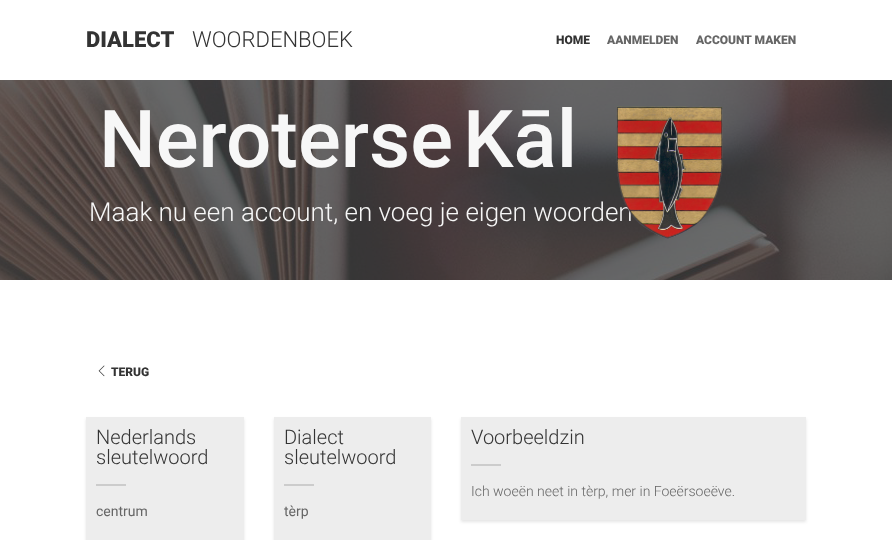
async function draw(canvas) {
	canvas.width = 892;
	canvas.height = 540;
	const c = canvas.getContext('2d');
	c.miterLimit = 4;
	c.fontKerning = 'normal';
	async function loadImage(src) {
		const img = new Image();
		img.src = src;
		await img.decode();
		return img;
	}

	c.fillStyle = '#fff';
	c.fillRect(0, 0, 892, 540);
	c.font = '900 22px Roboto';
	c.fillStyle = '#333';
	c.fillText('DIALECT', 86, 47);
	c.font = '300 22px Roboto';
	c.fillText('WOORDENBOEK', 192, 47);
	c.font = '900 12px Roboto';
	c.fillText('HOME', 556, 44);
	c.fillStyle = '#666';
	c.fillText('AANMELDEN', 607, 44);
	c.fillText('ACCOUNT MAKEN', 696, 44);
	c.drawImage(await loadImage('img1.png'), 0, 80, 892, 200);
	c.font = '500 80px Roboto';
	c.fillStyle = '#f7f7f7';
	c.fillText('Neroterse', 99, 167);
	c.fillText('Kāl', 463, 167);
	c.font = '300 26px Roboto';
	c.fillText('Maak nu een account, en voeg je eigen woorden', 89, 221);
	c.drawImage(await loadImage('img2.png'), 616, 106, 107, 133);
	c.drawImage(await loadImage('img3.png'), 98, 365, 7, 12);
	c.font = '900 12px Roboto';
	c.fillStyle = '#333';
	c.fillText('TERUG', 111, 376);
	c.fillStyle = '#0000001a';
	c.filter = 'blur(1.5px)';
	c.beginPath();
	c.rect(86, 419, 158, 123);
	c.fill();
	c.filter = 'none';
	c.fillStyle = '#ededed';
	c.fillRect(86, 417, 158, 123);
	c.font = '300 20px Roboto';
	c.fillStyle = '#333';
	c.fillText('Nederlands', 96, 444);
	c.fillText('sleutelwoord', 96, 464);
	c.fillStyle = '#ccc';
	c.fillRect(96, 484, 30, 2);
	c.font = '14px Roboto';
	c.fillStyle = '#666';
	c.fillText('centrum', 96, 516);
	c.fillStyle = '#0000001a';
	c.filter = 'blur(1.5px)';
	c.beginPath();
	c.rect(274, 419, 157, 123);
	c.fill();
	c.filter = 'none';
	c.fillStyle = '#ededed';
	c.fillRect(274, 417, 157, 123);
	c.font = '300 20px Roboto';
	c.fillStyle = '#333';
	c.fillText('Dialect', 284, 444);
	c.fillText('sleutelwoord', 284, 464);
	c.fillStyle = '#ccc';
	c.fillRect(284, 484, 30, 2);
	c.font = '14px Roboto';
	c.fillStyle = '#666';
	c.fillText('tèrp', 284, 516);
	c.fillStyle = '#0000001a';
	c.filter = 'blur(1.5px)';
	c.beginPath();
	c.rect(461, 419, 345, 103);
	c.fill();
	c.filter = 'none';
	c.fillStyle = '#ededed';
	c.fillRect(461, 417, 345, 103);
	c.font = '300 20px Roboto';
	c.fillStyle = '#333';
	c.fillText('Voorbeeldzin', 471, 444);
	c.fillStyle = '#ccc';
	c.fillRect(471, 464, 30, 2);
	c.font = '300 14px Roboto';
	c.fillStyle = '#666';
	c.fillText('Ich woeën neet in tèrp, mer in Foeërsoeëve.', 471, 496);
}

draw(document.querySelector('canvas'));
